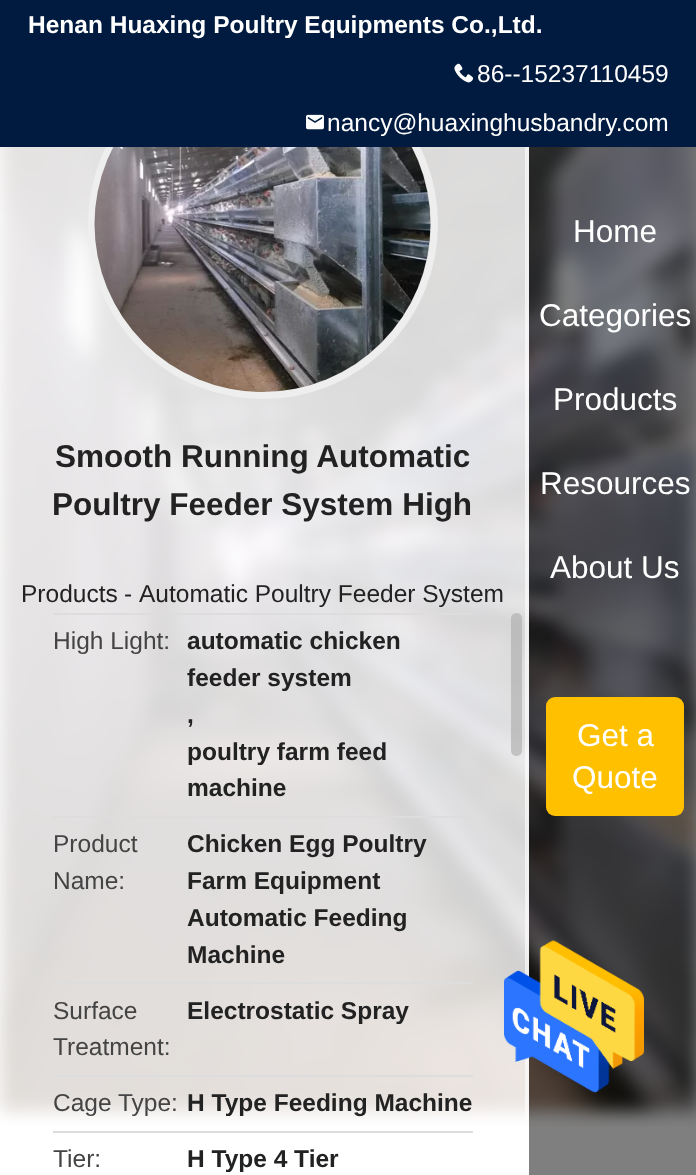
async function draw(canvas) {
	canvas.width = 696;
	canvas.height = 1175;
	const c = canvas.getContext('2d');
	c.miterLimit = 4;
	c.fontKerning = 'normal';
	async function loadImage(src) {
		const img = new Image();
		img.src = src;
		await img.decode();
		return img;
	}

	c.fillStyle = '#fff';
	c.fillRect(0, 0, 696, 1175);
	c.drawImage(await loadImage('img3.png'), 0, 147, 696, 980);
	c.fillStyle = '#ffffffcc';
	c.fillRect(0, 147, 529, 980);
	c.beginPath();
	c.arc(263, 224, 171.5, 0, 2 * Math.PI);
	c.strokeStyle = '#eee';
	c.lineWidth = 7;
	c.stroke();
	c.fillStyle = '#001b3f';
	c.fillRect(0, 0, 696, 147);
	c.font = 'bold 24.5px Liberation Sans';
	c.fillStyle = '#fff';
	c.fillText('Henan Huaxing Poultry Equipments Co.,Ltd.', 28, 33);
	c.drawImage(await loadImage('img1.png'), 454, 63, 20, 20);
	c.font = '24.5px Liberation Sans';
	c.fillText('86--15237110459', 477, 82);
	c.drawImage(await loadImage('img2.png'), 306, 114, 18, 16);
	c.fillText('nancy@huaxinghusbandry.com', 327, 131);
	c.fillStyle = '#ffffff99';
	c.fillRect(525, 147, 4, 973);
	c.drawImage(await loadImage('img4.png'), 94, 147, 337, 245);
	c.font = 'bold 31.5px Liberation Sans';
	c.fillStyle = '#222';
	c.fillText('Smooth Running Automatic', 55, 467);
	c.fillText('Poultry Feeder System High', 52, 515);
	c.font = '24.5px Liberation Sans';
	for (const [text, x, y] of [
		['Products', 21, 602],
		['-', 124, 602],
		['Automatic Poultry Feeder System', 139, 602],
	]) {
		c.fillText(text, x, y);
	}
	c.fillStyle = '#ddd';
	c.fillRect(53, 613, 420, 2);
	c.fillStyle = '#444';
	c.fillText('High Light:', 53, 649);
	c.font = 'bold 24.5px Liberation Sans';
	c.fillStyle = '#222';
	for (const [text, x, y] of [
		['automatic chicken', 187, 649],
		['feeder system', 187, 686],
		[',', 187, 723],
		['poultry farm feed', 187, 760],
		['machine', 187, 796],
	]) {
		c.fillText(text, x, y);
	}
	c.fillStyle = '#ddd';
	c.fillRect(53, 816, 420, 2);
	c.font = '24.5px Liberation Sans';
	c.fillStyle = '#444';
	c.fillText('Product', 53, 852);
	c.fillText('Name:', 53, 889);
	c.font = 'bold 24.5px Liberation Sans';
	c.fillStyle = '#222';
	for (const [text, x, y] of [
		['Chicken Egg Poultry', 187, 852],
		['Farm Equipment', 187, 889],
		['Automatic Feeding', 187, 926],
		['Machine', 187, 963],
	]) {
		c.fillText(text, x, y);
	}
	c.fillStyle = '#ddd';
	c.fillRect(53, 982, 420, 2);
	c.font = '24.5px Liberation Sans';
	c.fillStyle = '#444';
	c.fillText('Surface', 53, 1019);
	c.fillText('Treatment:', 53, 1055);
	c.font = 'bold 24.5px Liberation Sans';
	c.fillStyle = '#222';
	c.fillText('Electrostatic Spray', 187, 1019);
	c.fillStyle = '#ddd';
	c.fillRect(53, 1075, 420, 2);
	c.font = '24.5px Liberation Sans';
	c.fillStyle = '#444';
	c.fillText('Cage Type:', 53, 1111);
	c.font = 'bold 24.5px Liberation Sans';
	c.fillStyle = '#222';
	c.fillText('H Type Feeding Machine', 187, 1111);
	c.fillStyle = '#ddd';
	c.fillRect(53, 1131, 420, 2);
	c.font = '24.5px Liberation Sans';
	c.fillStyle = '#444';
	c.fillText('Tier:', 53, 1167);
	c.font = 'bold 24.5px Liberation Sans';
	c.fillStyle = '#222';
	c.fillText('H Type 4 Tier', 187, 1167);
	c.fillStyle = '#aaaaaa99';
	c.beginPath();
	c.roundRect(511, 613, 11, 143, 5.5);
	c.fill();
	c.fillStyle = '#00000080';
	c.fillRect(529, 147, 167, 1028);
	c.font = '31.5px Liberation Sans';
	c.fillStyle = '#fff';
	for (const [text, x, y] of [
		['Home', 573, 242],
		['Categories', 539, 326],
		['Products', 553, 410],
		['Resources', 540, 494],
		['About Us', 550, 578],
	]) {
		c.fillText(text, x, y);
	}
	c.fillStyle = '#ffc000';
	c.beginPath();
	c.roundRect(546, 697, 138, 119, 9);
	c.fill();
	c.fillStyle = '#fff';
	c.fillText('Get a', 577, 746);
	c.fillText('Quote', 572, 788);
	c.drawImage(await loadImage('img5.png'), 504, 940, 140, 153);
}

draw(document.querySelector('canvas'));
